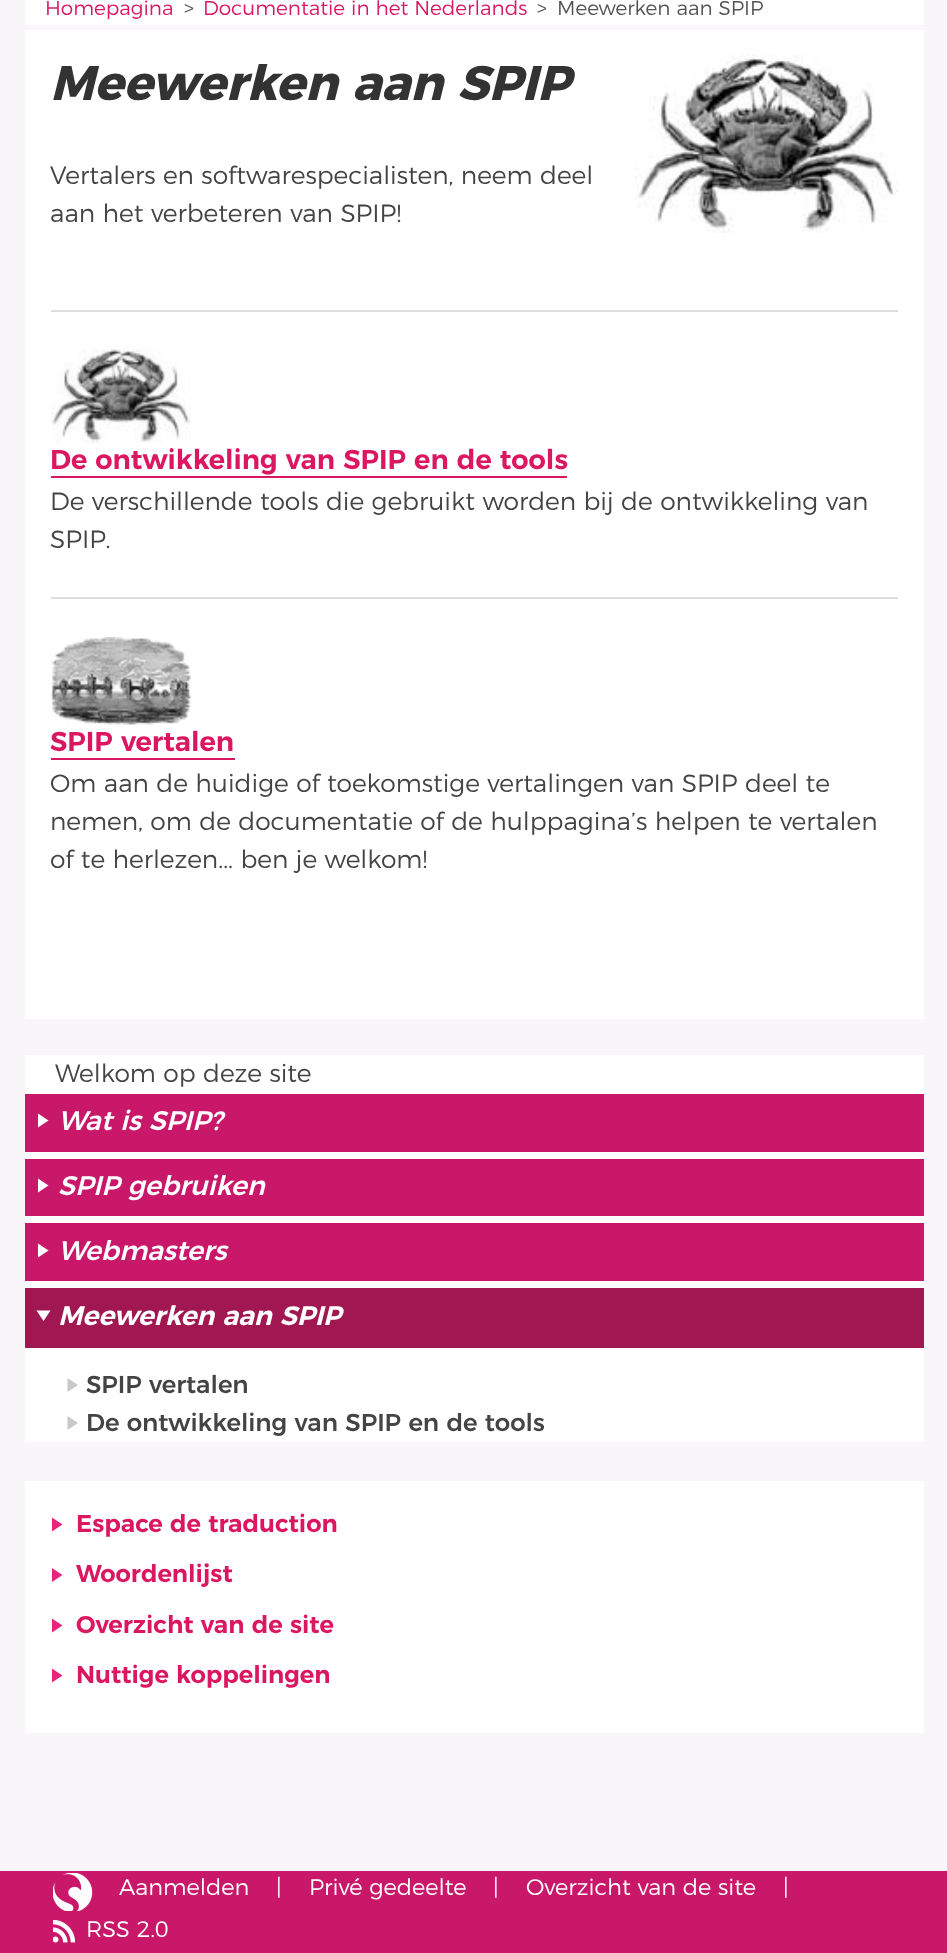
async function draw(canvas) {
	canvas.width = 947;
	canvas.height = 1953;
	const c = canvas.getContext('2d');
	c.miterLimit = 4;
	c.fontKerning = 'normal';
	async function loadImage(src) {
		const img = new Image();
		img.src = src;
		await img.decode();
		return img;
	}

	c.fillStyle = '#f8f6f8';
	c.fillRect(0, 0, 947, 1953);
	c.fillStyle = '#fff';
	c.fillRect(25, 0, 899, 25);
	c.font = '300 20.2px Montserrat';
	c.fillStyle = '#db1762';
	c.fillText('Homepagina', 45, 15);
	c.fillStyle = '#535353';
	c.fillText('>', 184, 15);
	c.fillStyle = '#db1762';
	c.fillText('Documentatie in het Nederlands', 203, 15);
	c.fillStyle = '#535353';
	c.fillText('>', 537, 15);
	c.fillText('Meewerken aan SPIP', 557, 15);
	c.fillStyle = '#fff';
	c.fillRect(25, 30, 899, 989);
	c.font = 'italic bold 50.5px Montserrat';
	c.fillStyle = '#333';
	c.fillText('Meewerken aan SPIP', 50, 100);
	c.drawImage(await loadImage('img1.png'), 635, 54, 263, 179);
	c.font = '300 25.2px Montserrat';
	c.fillStyle = '#444';
	c.fillText('Vertalers en softwarespecialisten, neem deel', 50, 184);
	c.fillText('aan het verbeteren van SPIP!', 50, 222);
	c.fillStyle = '#ddd';
	c.fillRect(51, 310, 847, 2);
	c.drawImage(await loadImage('img2.png'), 51, 348, 140, 95);
	c.font = '600 28.4px Montserrat';
	c.fillStyle = '#db1762';
	c.fillText('De ontwikkeling van SPIP en de tools', 50, 469);
	c.fillRect(51, 476, 516, 2);
	c.font = '300 25.2px Montserrat';
	c.fillStyle = '#444';
	c.fillText('De verschillende tools die gebruikt worden bij de ontwikkeling van', 50, 510);
	c.fillText('SPIP.', 50, 548);
	c.fillStyle = '#ddd';
	c.fillRect(51, 597, 847, 2);
	c.drawImage(await loadImage('img3.png'), 51, 637, 140, 88);
	c.font = '600 28.4px Montserrat';
	c.fillStyle = '#db1762';
	c.fillText('SPIP vertalen', 50, 751);
	c.fillRect(51, 758, 184, 2);
	c.font = '300 25.2px Montserrat';
	c.fillStyle = '#444';
	for (const [text, x, y] of [
		['Om aan de huidige of toekomstige vertalingen van SPIP deel te', 50, 792],
		['nemen, om de documentatie of de hulppagina’s helpen te vertalen', 50, 830],
		['of te herlezen... ben je welkom!', 50, 868],
	]) {
		c.fillText(text, x, y);
	}
	c.fillStyle = '#fff';
	c.fillRect(25, 1055, 899, 387);
	c.fillStyle = '#444';
	c.fillText('Welkom op deze site', 55, 1082);
	c.fillStyle = '#c91869';
	c.fillRect(25, 1094, 899, 58);
	c.fillStyle = '#fff';
	c.beginPath();
	c.moveTo(38, 1127.5);
	c.lineTo(38, 1113.5);
	c.lineTo(48.5, 1120.5);
	c.closePath();
	c.fill();
	c.font = 'italic 500 27.75px Montserrat';
	c.fillText('Wat is SPIP?', 58, 1130);
	c.fillStyle = '#c91869';
	c.fillRect(25, 1159, 899, 57);
	c.fillStyle = '#fff';
	c.beginPath();
	c.moveTo(38, 1192.5);
	c.lineTo(38, 1178.5);
	c.lineTo(48.5, 1185.5);
	c.closePath();
	c.fill();
	c.fillText('SPIP gebruiken', 58, 1195);
	c.fillStyle = '#c91869';
	c.fillRect(25, 1223, 899, 58);
	c.fillStyle = '#fff';
	c.beginPath();
	c.moveTo(38, 1257.5);
	c.lineTo(38, 1243.5);
	c.lineTo(48.5, 1250.5);
	c.closePath();
	c.fill();
	c.fillText('Webmasters', 58, 1260);
	c.fillStyle = '#a11752';
	c.fillRect(25, 1288, 899, 60);
	c.fillStyle = '#fff';
	c.beginPath();
	c.moveTo(36.5, 1310.5);
	c.lineTo(50.5, 1310.5);
	c.lineTo(43.5, 1321);
	c.closePath();
	c.fill();
	c.font = 'italic 600 27.75px Montserrat';
	c.fillText('Meewerken aan SPIP', 58, 1325);
	c.fillStyle = '#c8c8c8';
	c.beginPath();
	c.moveTo(67.5, 1392);
	c.lineTo(67.5, 1378);
	c.lineTo(78, 1385);
	c.closePath();
	c.fill();
	c.font = '500 25.2px Montserrat';
	c.fillStyle = '#444';
	c.fillText('SPIP vertalen', 86, 1393);
	c.fillStyle = '#c8c8c8';
	c.beginPath();
	c.moveTo(67.5, 1430);
	c.lineTo(67.5, 1416);
	c.lineTo(78, 1423);
	c.closePath();
	c.fill();
	c.fillStyle = '#444';
	c.fillText('De ontwikkeling van SPIP en de tools', 86, 1431);
	c.fillStyle = '#fff';
	c.fillRect(25, 1481, 899, 252);
	c.fillStyle = '#e6267d';
	c.beginPath();
	c.moveTo(52, 1531.5);
	c.lineTo(52, 1517.5);
	c.lineTo(62.5, 1524.5);
	c.closePath();
	c.fill();
	c.font = '600 25.2px Montserrat';
	c.fillStyle = '#db1762';
	c.fillText('Espace de traduction', 76, 1532);
	c.fillStyle = '#e6267d';
	c.beginPath();
	c.moveTo(52, 1582);
	c.lineTo(52, 1568);
	c.lineTo(62.5, 1575);
	c.closePath();
	c.fill();
	c.fillStyle = '#db1762';
	c.fillText('Woordenlijst', 76, 1582);
	c.fillStyle = '#e6267d';
	c.beginPath();
	c.moveTo(52, 1632.5);
	c.lineTo(52, 1618.5);
	c.lineTo(62.5, 1625.5);
	c.closePath();
	c.fill();
	c.fillStyle = '#db1762';
	c.fillText('Overzicht van de site', 76, 1633);
	c.fillStyle = '#e6267d';
	c.beginPath();
	c.moveTo(52, 1682.5);
	c.lineTo(52, 1668.5);
	c.lineTo(62.5, 1675.5);
	c.closePath();
	c.fill();
	c.fillStyle = '#db1762';
	c.fillText('Nuttige koppelingen', 76, 1683);
	c.fillStyle = '#c91869';
	c.fillRect(0, 1871, 947, 82);
	c.drawImage(await loadImage('img4.png'), 53, 1873, 40, 38);
	c.font = '300 22.75px Montserrat';
	c.fillStyle = '#fff';
	for (const [text, x, y] of [
		['Aanmelden', 119, 1895],
		['|', 276, 1895],
		['Privé gedeelte', 309, 1895],
		['|', 493, 1895],
		['Overzicht van de site', 526, 1895],
		['|', 783, 1895],
	]) {
		c.fillText(text, x, y);
	}
	c.drawImage(await loadImage('img5.png'), 53, 1920, 22, 23);
	c.fillText('RSS 2.0', 86, 1937);
}

draw(document.querySelector('canvas'));
